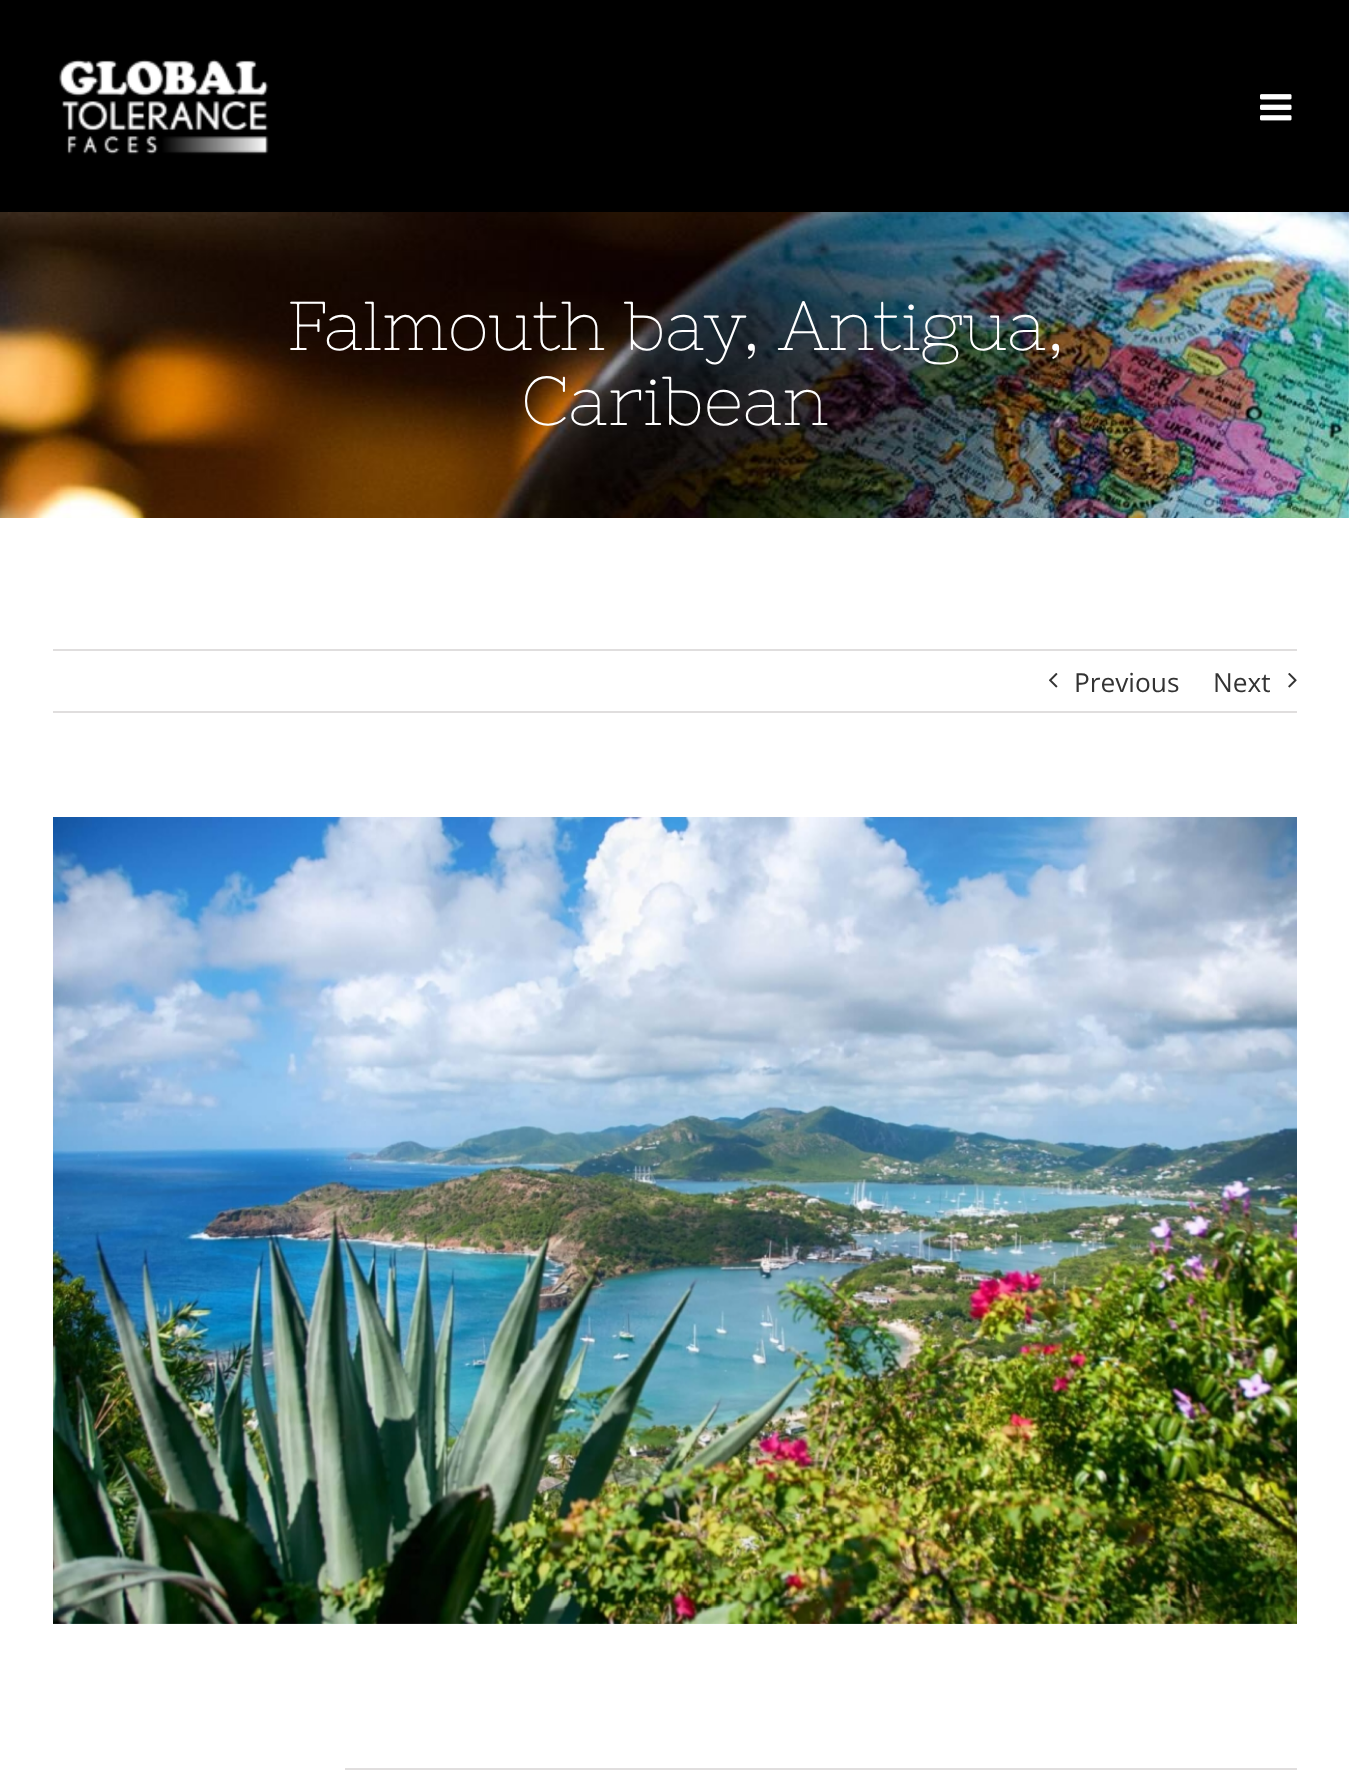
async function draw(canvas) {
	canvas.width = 1349;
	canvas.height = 1778;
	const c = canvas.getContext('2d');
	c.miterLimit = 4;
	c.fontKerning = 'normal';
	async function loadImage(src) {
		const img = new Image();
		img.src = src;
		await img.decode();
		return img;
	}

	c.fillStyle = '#fff';
	c.fillRect(0, 0, 1349, 1778);
	c.fillStyle = '#000';
	c.fillRect(0, 0, 1349, 212);
	c.drawImage(await loadImage('img1.png'), 59, 59, 210, 96);
	c.drawImage(await loadImage('img2.png'), 1260, 94, 32, 27);
	c.drawImage(await loadImage('img3.png'), 0, 212, 1349, 306);
	c.font = '68.9px Nixie One';
	c.fillStyle = '#fff';
	c.fillText('Falmouth bay, Antigua,', 287, 350);
	c.fillText('Caribean', 521, 425);
	c.fillStyle = '#e0dede';
	c.fillRect(53, 649, 1244, 2);
	c.fillRect(53, 711, 1244, 2);
	c.drawImage(await loadImage('img4.png'), 1049, 673, 9, 15);
	c.font = '26.25px Open Sans';
	c.fillStyle = '#333';
	c.fillText('Previous', 1074, 692);
	c.fillText('Next', 1213, 692);
	c.drawImage(await loadImage('img5.png'), 1288, 673, 9, 15);
	c.drawImage(await loadImage('img6.png'), 53, 817, 1244, 807);
	c.fillStyle = '#e0dede';
	c.fillRect(345, 1768, 952, 2);
}

draw(document.querySelector('canvas'));
